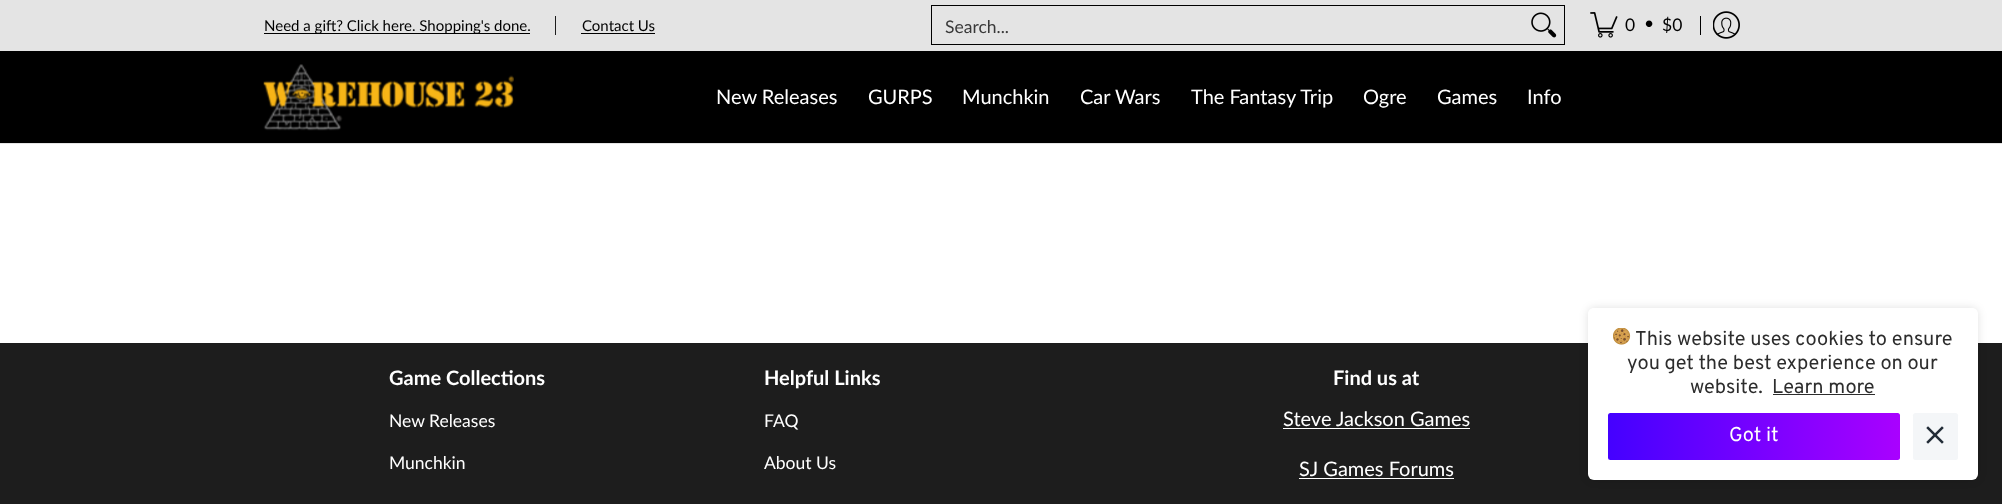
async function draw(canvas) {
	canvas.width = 2002;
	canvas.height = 504;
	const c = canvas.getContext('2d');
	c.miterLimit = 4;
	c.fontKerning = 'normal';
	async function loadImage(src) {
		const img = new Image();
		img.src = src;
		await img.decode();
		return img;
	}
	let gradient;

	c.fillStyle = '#fff';
	c.fillRect(0, 0, 2002, 504);
	for (const [x, y, w, h, color] of [
		[0, 51, 2002, 92, '#000'],
		[0, 0, 2002, 51, '#e4e4e4'],
		[264, 33, 266, 1, '#000'],
	]) {
		c.fillStyle = color;
		c.fillRect(x, y, w, h);
	}
	c.font = '15px Lato';
	c.fillText('Need a gift? Click here. Shopping\'s done.', 264, 31);
	c.fillStyle = '#1d1d1d';
	c.fillRect(555, 16, 1, 19);
	c.fillStyle = '#000';
	c.fillText('Contact Us', 582, 31);
	c.fillRect(581, 33, 74, 1);
	c.strokeStyle = '#000';
	c.strokeRect(931.5, 5.5, 633, 39);
	c.font = '17.5px Lato';
	c.fillStyle = '#393939';
	c.fillText('Search...', 945, 33);
	c.drawImage(await loadImage('img1.png'), 1531, 12, 26, 26);
	c.drawImage(await loadImage('img2.png'), 1590, 12, 28, 26);
	c.fillStyle = '#000';
	for (const [text, x, y] of [
		['0', 1625, 31],
		['•', 1644, 29],
		['$0', 1662, 31],
	]) {
		c.fillText(text, x, y);
	}
	c.fillRect(1700, 16, 1, 19);
	c.drawImage(await loadImage('img3.png'), 1713, 11, 27, 28);
	c.fillStyle = '#e4e4e4';
	c.fillRect(0, 143, 2002, 1);
	c.drawImage(await loadImage('img4.png'), 263, 64, 251, 67);
	c.font = '20px Lato';
	c.fillStyle = '#fff';
	for (const [text, x, y] of [
		['New Releases', 716, 104],
		['GURPS', 868, 104],
		['Munchkin', 962, 104],
		['Car Wars', 1080, 104],
		['The Fantasy Trip', 1191, 104],
		['Ogre', 1363, 104],
		['Games', 1437, 104],
		['Info', 1527, 104],
	]) {
		c.fillText(text, x, y);
	}
	c.fillStyle = '#1d1d1d';
	c.fillRect(0, 343, 2002, 161);
	c.font = 'bold 20px Lato';
	c.fillStyle = '#fff';
	c.fillText('Game Collections', 389, 385);
	c.font = '17.5px Lato';
	c.fillText('New Releases', 389, 427);
	c.fillText('Munchkin', 389, 469);
	c.font = 'bold 20px Lato';
	c.fillText('Helpful Links', 764, 385);
	c.font = '17.5px Lato';
	c.fillText('FAQ', 764, 427);
	c.fillText('About Us', 764, 469);
	c.font = 'bold 20px Lato';
	c.fillText('Find us at', 1333, 385);
	c.font = '20px Lato';
	c.fillText('Steve Jackson Games', 1283, 426);
	c.fillRect(1283, 428, 187, 1);
	c.fillText('SJ Games Forums', 1299, 476);
	c.fillRect(1299, 478, 155, 1);
	c.beginPath();
	c.roundRect(1588, 308, 390, 172, 6);
	c.fill();
	c.save();
	c.beginPath();
	c.moveTo(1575, 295);
	c.lineTo(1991, 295);
	c.lineTo(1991, 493);
	c.lineTo(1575, 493);
	c.closePath();
	c.moveTo(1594, 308);
	c.lineTo(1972, 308);
	c.bezierCurveTo(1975.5, 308, 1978, 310.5, 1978, 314);
	c.lineTo(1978, 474);
	c.bezierCurveTo(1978, 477.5, 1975.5, 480, 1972, 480);
	c.lineTo(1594, 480);
	c.bezierCurveTo(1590.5, 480, 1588, 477.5, 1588, 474);
	c.lineTo(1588, 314);
	c.bezierCurveTo(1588, 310.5, 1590.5, 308, 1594, 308);
	c.closePath();
	c.clip('evenodd');
	c.fillStyle = '#0000001f';
	c.filter = 'blur(4px)';
	c.beginPath();
	c.roundRect(1588, 308, 390, 172, 6);
	c.fill();
	c.filter = 'none';
	c.restore();
	c.drawImage(await loadImage('img5.png'), 1613, 328, 18, 17);
	c.font = '20px Overpass';
	c.fillStyle = '#2d2d2d';
	for (const [text, x, y] of [
		['This website uses cookies to ensure', 1635, 345],
		['you get the best experience on our', 1627, 369],
		['website.', 1690, 393],
		['Learn more', 1772, 393],
	]) {
		c.fillText(text, x, y);
	}
	c.fillRect(1773, 394, 102, 1);
	gradient = c.createLinearGradient(1608, 436, 1900, 436);
	gradient.addColorStop(0, '#4401ff');
	gradient.addColorStop(1, '#a901ff');
	c.fillStyle = gradient;
	c.beginPath();
	c.roundRect(1608, 413, 292, 47, 2.5);
	c.fill();
	c.fillStyle = '#fff';
	c.fillText('Got it', 1729, 441);
	c.fillStyle = '#f4f6f8';
	c.beginPath();
	c.roundRect(1913, 413, 45, 47, 2.5);
	c.fill();
	c.drawImage(await loadImage('img6.png'), 1926, 426, 18, 18);
}

draw(document.querySelector('canvas'));
